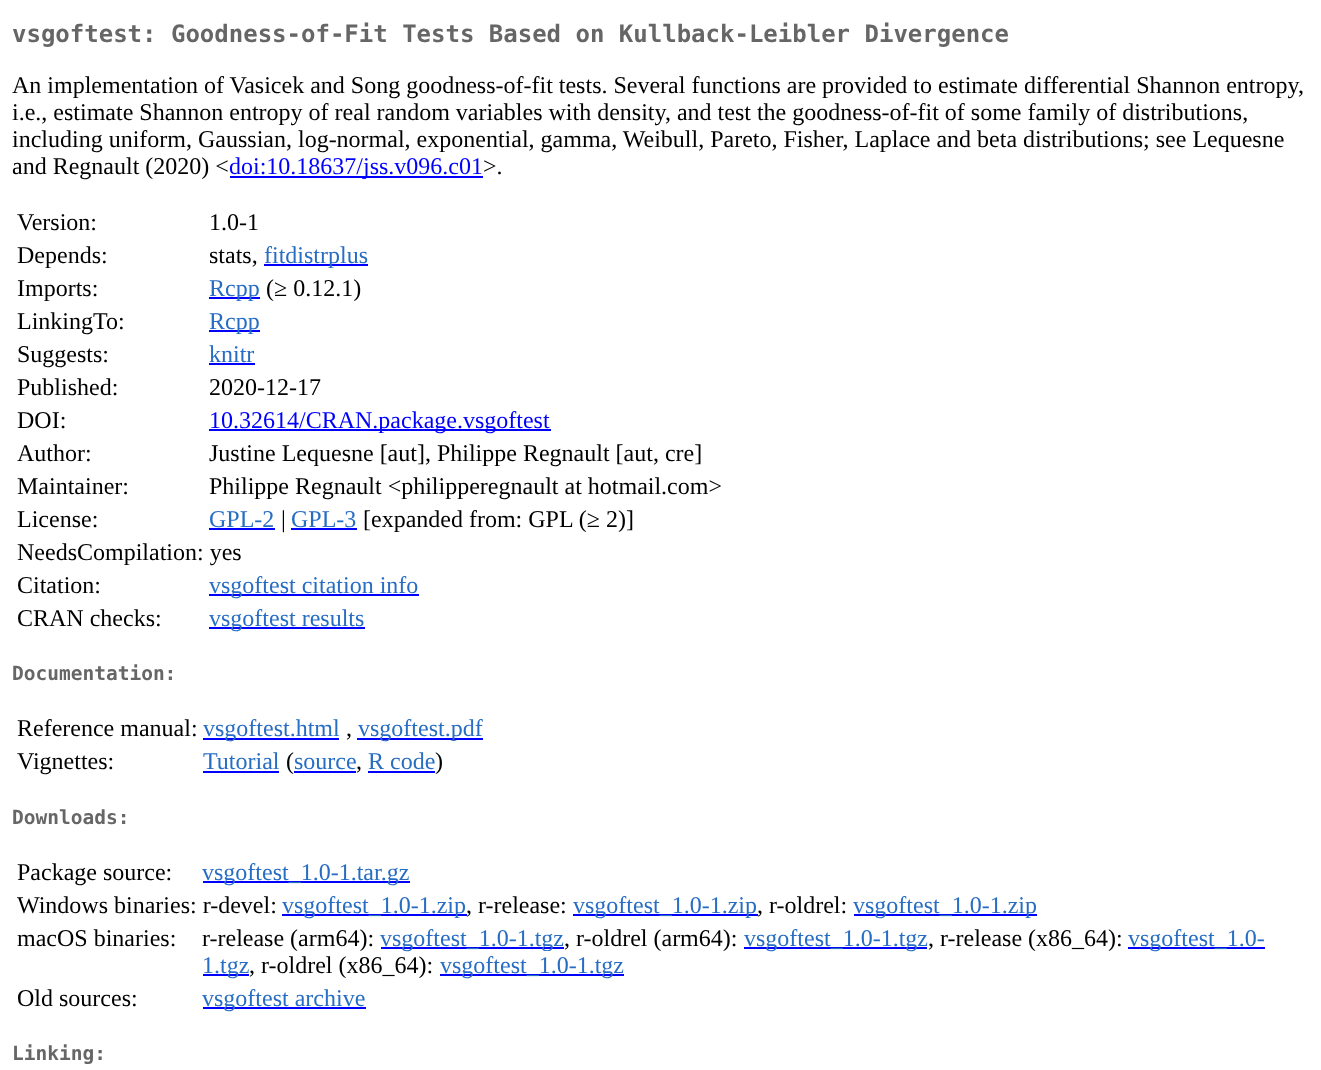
async function draw(canvas) {
	canvas.width = 1321;
	canvas.height = 1070;
	const c = canvas.getContext('2d');
	c.miterLimit = 4;
	c.fontKerning = 'normal';

	c.fillStyle = '#fff';
	c.fillRect(0, 0, 1321, 1070);
	c.font = 'bold 24px DejaVu Sans Mono';
	c.fillStyle = '#666';
	c.fillText('vsgoftest: Goodness-of-Fit Tests Based on Kullback-Leibler Divergence', 12, 42);
	c.font = '24px Liberation Serif';
	c.fillStyle = '#000';
	for (const [text, x, y] of [
		['An implementation of Vasicek and Song goodness-of-fit tests. Several functions are provided to estimate differential Shannon entropy,', 12, 93],
		['i.e., estimate Shannon entropy of real random variables with density, and test the goodness-of-fit of some family of distributions,', 12, 120],
		['including uniform, Gaussian, log-normal, exponential, gamma, Weibull, Pareto, Fisher, Laplace and beta distributions; see Lequesne', 12, 147],
		['and Regnault (2020) <', 12, 174],
	]) {
		c.fillText(text, x, y);
	}
	c.fillStyle = '#00f';
	c.fillRect(230, 176, 253, 2);
	c.fillText('doi:10.18637/jss.v096.c01', 229, 174);
	c.fillStyle = '#000';
	for (const [text, x, y] of [
		['>.', 483, 174],
		['Version:', 17, 230],
		['1.0-1', 209, 230],
		['Depends:', 17, 263],
		['stats,', 209, 263],
	]) {
		c.fillText(text, x, y);
	}
	c.fillStyle = '#00f';
	c.fillRect(264, 264, 104, 2);
	c.fillStyle = '#276dc3';
	c.fillText('fitdistrplus', 264, 263);
	c.fillStyle = '#000';
	c.fillText('Imports:', 17, 296);
	c.fillStyle = '#00f';
	c.fillRect(209, 297, 51, 2);
	c.fillStyle = '#276dc3';
	c.fillText('Rcpp', 209, 296);
	c.fillStyle = '#000';
	c.fillText('(≥ 0.12.1)', 266, 296);
	c.fillText('LinkingTo:', 17, 329);
	c.fillStyle = '#00f';
	c.fillRect(209, 330, 51, 2);
	c.fillStyle = '#276dc3';
	c.fillText('Rcpp', 209, 329);
	c.fillStyle = '#000';
	c.fillText('Suggests:', 17, 362);
	c.fillStyle = '#276dc3';
	c.fillText('knitr', 209, 362);
	c.fillStyle = '#00f';
	c.fillRect(209, 363, 46, 2);
	c.fillStyle = '#000';
	for (const [text, x, y] of [
		['Published:', 17, 395],
		['2020-12-17', 209, 395],
		['DOI:', 17, 428],
	]) {
		c.fillText(text, x, y);
	}
	c.fillStyle = '#00f';
	c.fillRect(209, 429, 342, 2);
	c.fillText('10.32614/CRAN.package.vsgoftest', 209, 428);
	c.fillStyle = '#000';
	for (const [text, x, y] of [
		['Author:', 17, 461],
		['Justine Lequesne [aut], Philippe Regnault [aut, cre]', 209, 461],
		['Maintainer:', 17, 494],
		['Philippe Regnault <philipperegnault at hotmail.com>', 209, 494],
		['License:', 17, 527],
	]) {
		c.fillText(text, x, y);
	}
	c.fillStyle = '#276dc3';
	c.fillText('GPL-2', 209, 527);
	c.fillStyle = '#00f';
	c.fillRect(209, 528, 66, 2);
	c.fillStyle = '#000';
	c.fillText('|', 281, 527);
	c.fillStyle = '#276dc3';
	c.fillText('GPL-3', 291, 527);
	c.fillStyle = '#00f';
	c.fillRect(291, 528, 66, 2);
	c.fillStyle = '#000';
	for (const [text, x, y] of [
		['[expanded from: GPL (≥ 2)]', 363, 527],
		['NeedsCompilation: yes', 17, 560],
		['Citation:', 17, 593],
	]) {
		c.fillText(text, x, y);
	}
	c.fillStyle = '#00f';
	c.fillRect(209, 594, 210, 2);
	c.fillStyle = '#276dc3';
	c.fillText('vsgoftest citation info', 209, 593);
	c.fillStyle = '#000';
	c.fillText('CRAN checks:', 17, 626);
	c.fillStyle = '#00f';
	c.fillRect(209, 627, 156, 2);
	c.fillStyle = '#276dc3';
	c.fillText('vsgoftest results', 209, 626);
	c.font = 'bold 19.5px DejaVu Sans Mono';
	c.fillStyle = '#666';
	c.fillText('Documentation:', 12, 680);
	c.font = '24px Liberation Serif';
	c.fillStyle = '#000';
	c.fillText('Reference manual:', 17, 736);
	c.fillStyle = '#00f';
	c.fillRect(203, 738, 136, 2);
	c.fillStyle = '#276dc3';
	c.fillText('vsgoftest.html', 203, 736);
	c.fillStyle = '#000';
	c.fillText(',', 346, 736);
	c.fillStyle = '#00f';
	c.fillRect(357, 738, 126, 2);
	c.fillStyle = '#276dc3';
	c.fillText('vsgoftest.pdf', 358, 736);
	c.fillStyle = '#000';
	c.fillText('Vignettes:', 17, 769);
	c.fillStyle = '#276dc3';
	c.fillText('Tutorial', 203, 769);
	c.fillStyle = '#00f';
	c.fillRect(203, 771, 76, 2);
	c.fillStyle = '#000';
	c.fillText('(', 286, 769);
	c.fillStyle = '#276dc3';
	c.fillText('source', 294, 769);
	c.fillStyle = '#00f';
	c.fillRect(294, 771, 62, 2);
	c.fillStyle = '#000';
	c.fillText(',', 356, 769);
	c.fillStyle = '#276dc3';
	c.fillText('R code', 368, 769);
	c.fillStyle = '#00f';
	c.fillRect(368, 771, 67, 2);
	c.fillStyle = '#000';
	c.fillText(')', 435, 769);
	c.font = 'bold 19.5px DejaVu Sans Mono';
	c.fillStyle = '#666';
	c.fillText('Downloads:', 12, 824);
	c.font = '24px Liberation Serif';
	c.fillStyle = '#000';
	c.fillText('Package source:', 17, 880);
	c.fillStyle = '#00f';
	c.fillRect(203, 881, 207, 2);
	c.fillStyle = '#276dc3';
	c.fillText('vsgoftest_1.0-1.tar.gz', 202, 880);
	c.fillStyle = '#000';
	c.fillText('Windows binaries: r-devel:', 17, 913);
	c.fillStyle = '#00f';
	c.fillRect(282, 914, 185, 2);
	c.fillStyle = '#276dc3';
	c.fillText('vsgoftest_1.0-1.zip', 282, 913);
	c.fillStyle = '#000';
	c.fillText(', r-release:', 466, 913);
	c.fillStyle = '#00f';
	c.fillRect(573, 914, 185, 2);
	c.fillStyle = '#276dc3';
	c.fillText('vsgoftest_1.0-1.zip', 573, 913);
	c.fillStyle = '#000';
	c.fillText(', r-oldrel:', 757, 913);
	c.fillStyle = '#00f';
	c.fillRect(854, 914, 183, 2);
	c.fillStyle = '#276dc3';
	c.fillText('vsgoftest_1.0-1.zip', 853, 913);
	c.fillStyle = '#000';
	c.fillText('macOS binaries:', 17, 946);
	c.fillText('r-release (arm64):', 202, 946);
	c.fillStyle = '#00f';
	c.fillRect(381, 947, 183, 2);
	c.fillStyle = '#276dc3';
	c.fillText('vsgoftest_1.0-1.tgz', 380, 946);
	c.fillStyle = '#000';
	c.fillText(', r-oldrel (arm64):', 564, 946);
	c.fillStyle = '#00f';
	c.fillRect(744, 947, 183, 2);
	c.fillStyle = '#276dc3';
	c.fillText('vsgoftest_1.0-1.tgz', 744, 946);
	c.fillStyle = '#000';
	c.fillText(', r-release (x86_64):', 928, 946);
	c.fillStyle = '#00f';
	c.fillRect(1128, 947, 137, 2);
	c.fillStyle = '#276dc3';
	c.fillText('vsgoftest_1.0-', 1128, 946);
	c.fillStyle = '#00f';
	c.fillRect(203, 974, 46, 2);
	c.fillStyle = '#276dc3';
	c.fillText('1.tgz', 202, 973);
	c.fillStyle = '#000';
	c.fillText(', r-oldrel (x86_64):', 249, 973);
	c.fillStyle = '#00f';
	c.fillRect(440, 974, 184, 2);
	c.fillStyle = '#276dc3';
	c.fillText('vsgoftest_1.0-1.tgz', 440, 973);
	c.fillStyle = '#fff';
	c.fillRect(545, 951, 4, 1);
	c.fillStyle = '#000';
	c.fillText('Old sources:', 17, 1006);
	c.fillStyle = '#00f';
	c.fillRect(203, 1007, 163, 2);
	c.fillStyle = '#276dc3';
	c.fillText('vsgoftest archive', 202, 1006);
	c.font = 'bold 19.5px DejaVu Sans Mono';
	c.fillStyle = '#666';
	c.fillText('Linking:', 12, 1060);
}

draw(document.querySelector('canvas'));
